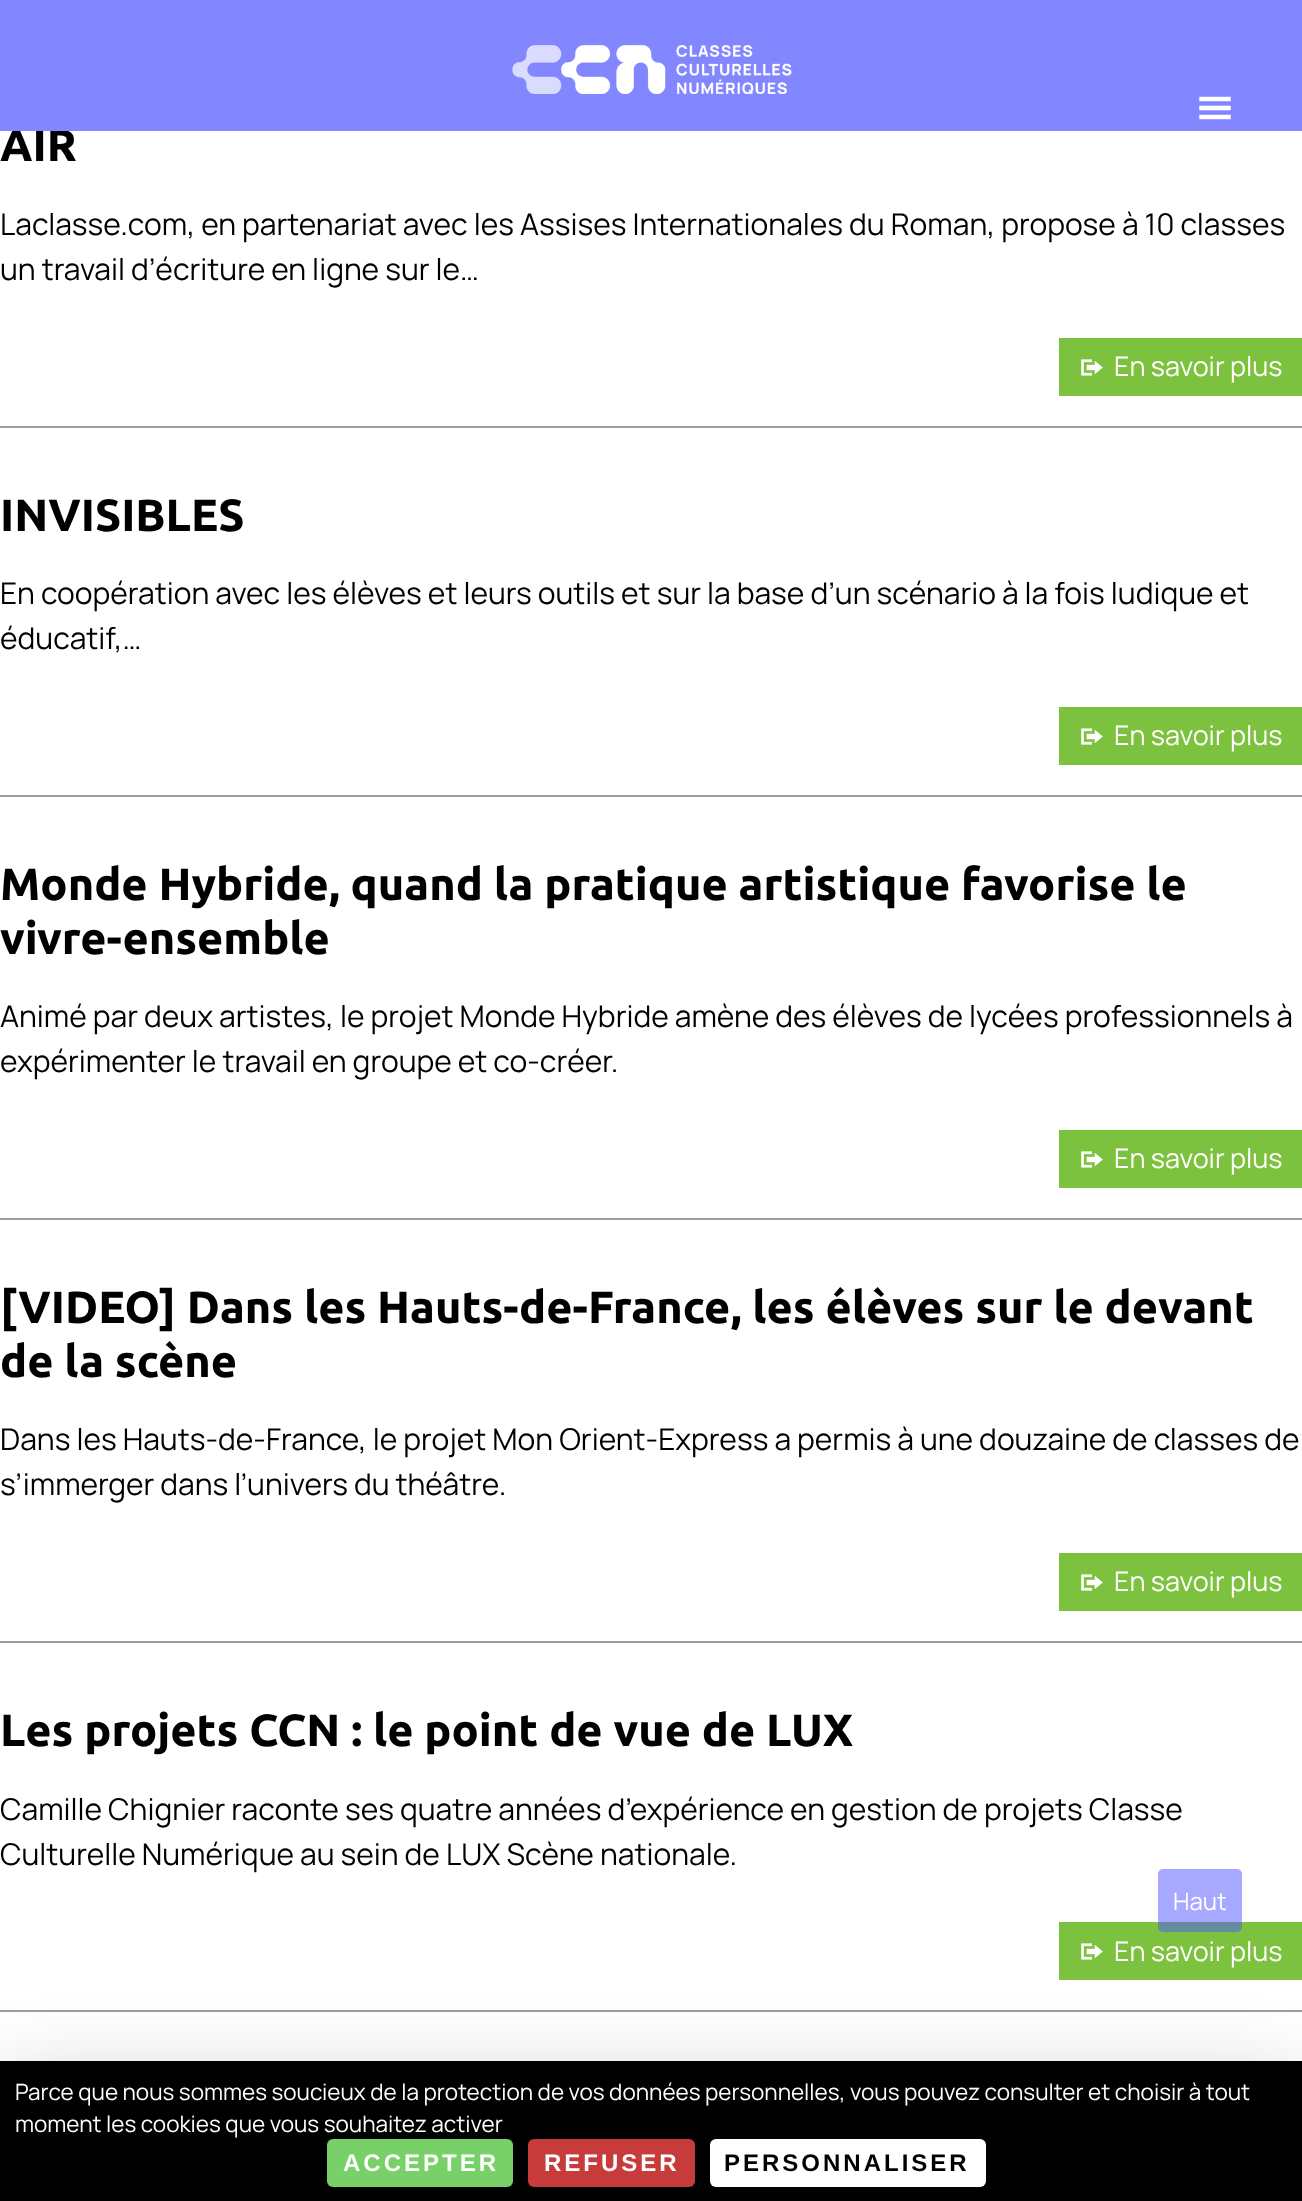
async function draw(canvas) {
	canvas.width = 1302;
	canvas.height = 2201;
	const c = canvas.getContext('2d');
	c.miterLimit = 4;
	c.fontKerning = 'normal';
	async function loadImage(src) {
		const img = new Image();
		img.src = src;
		await img.decode();
		return img;
	}

	c.fillStyle = '#fff';
	c.fillRect(0, 0, 1302, 2201);
	c.font = 'bold 45px Ubuntu';
	c.fillStyle = '#000';
	c.fillText('AIR', 0, 161);
	c.fillStyle = '#8287ff';
	c.fillRect(0, 0, 1302, 131);
	c.drawImage(await loadImage('img1.png'), 512, 45, 280, 49);
	c.drawImage(await loadImage('img2.png'), 1199, 96, 32, 24);
	c.fillStyle = '#9d9d9d';
	c.fillRect(0, 426, 1302, 2);
	c.font = '30px Manrope';
	c.fillStyle = '#000';
	c.fillText('Laclasse.com, en partenariat avec les Assises Internationales du Roman, propose à 10 classes', 0, 235);
	c.fillText('un travail d’écriture en ligne sur le…', 0, 280);
	c.fillStyle = '#7dc23e';
	c.fillRect(1059, 338, 243, 58);
	c.drawImage(await loadImage('img3.png'), 1081, 359, 22, 17);
	c.font = '27px Manrope';
	c.fillStyle = '#fff';
	c.fillText('En savoir plus', 1114, 376);
	c.fillStyle = '#9d9d9d';
	c.fillRect(0, 795, 1302, 2);
	c.font = 'bold 45px Ubuntu';
	c.fillStyle = '#000';
	c.fillText('INVISIBLES', 0, 531);
	c.font = '30px Manrope';
	c.fillText('En coopération avec les élèves et leurs outils et sur la base d’un scénario à la fois ludique et', 0, 604);
	c.fillText('éducatif,…', 0, 649);
	c.fillStyle = '#7dc23e';
	c.fillRect(1059, 707, 243, 58);
	c.drawImage(await loadImage('img3.png'), 1081, 728, 22, 17);
	c.font = '27px Manrope';
	c.fillStyle = '#fff';
	c.fillText('En savoir plus', 1114, 745);
	c.fillStyle = '#9d9d9d';
	c.fillRect(0, 1218, 1302, 2);
	c.font = 'bold 45px Ubuntu';
	c.fillStyle = '#000';
	c.fillText('Monde Hybride, quand la pratique artistique favorise le', 0, 900);
	c.fillText('vivre-ensemble', 0, 954);
	c.font = '30px Manrope';
	c.fillText('Animé par deux artistes, le projet Monde Hybride amène des élèves de lycées professionnels à', 0, 1027);
	c.fillText('expérimenter le travail en groupe et co-créer.', 0, 1072);
	c.fillStyle = '#7dc23e';
	c.fillRect(1059, 1130, 243, 58);
	c.drawImage(await loadImage('img3.png'), 1081, 1151, 22, 17);
	c.font = '27px Manrope';
	c.fillStyle = '#fff';
	c.fillText('En savoir plus', 1114, 1168);
	c.fillStyle = '#9d9d9d';
	c.fillRect(0, 1641, 1302, 2);
	c.font = 'bold 45px Ubuntu';
	c.fillStyle = '#000';
	c.fillText('[VIDEO] Dans les Hauts-de-France, les élèves sur le devant', 0, 1323);
	c.fillText('de la scène', 0, 1377);
	c.font = '30px Manrope';
	c.fillText('Dans les Hauts-de-France, le projet Mon Orient-Express a permis à une douzaine de classes de', 0, 1450);
	c.fillText('s’immerger dans l’univers du théâtre.', 0, 1495);
	c.fillStyle = '#7dc23e';
	c.fillRect(1059, 1553, 243, 58);
	c.drawImage(await loadImage('img3.png'), 1081, 1574, 22, 17);
	c.font = '27px Manrope';
	c.fillStyle = '#fff';
	c.fillText('En savoir plus', 1114, 1591);
	c.fillStyle = '#9d9d9d';
	c.fillRect(0, 2010, 1302, 2);
	c.font = 'bold 45px Ubuntu';
	c.fillStyle = '#000';
	c.fillText('Les projets CCN : le point de vue de LUX', 0, 1746);
	c.font = '30px Manrope';
	c.fillText('Camille Chignier raconte ses quatre années d’expérience en gestion de projets Classe', 0, 1820);
	c.fillText('Culturelle Numérique au sein de LUX Scène nationale.', 0, 1865);
	c.fillStyle = '#7dc23e';
	c.fillRect(1059, 1922, 243, 58);
	c.drawImage(await loadImage('img3.png'), 1081, 1943, 22, 17);
	c.font = '27px Manrope';
	c.fillStyle = '#fff';
	c.fillText('En savoir plus', 1114, 1961);
	c.fillStyle = '#4d54ff80';
	c.beginPath();
	c.roundRect(1158, 1869, 84, 63, 5);
	c.fill();
	c.font = '24px Manrope';
	c.fillStyle = '#fff';
	c.fillText('Haut', 1173, 1910);
	c.fillStyle = '#00000040';
	c.filter = 'blur(45px)';
	c.beginPath();
	c.rect(0, 2091, 1302, 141);
	c.fill();
	c.filter = 'none';
	c.fillStyle = '#000';
	c.fillRect(0, 2061, 1302, 140);
	c.font = '22.5px Manrope';
	c.fillStyle = '#fff';
	c.fillText('Parce que nous sommes soucieux de la protection de vos données personnelles, vous pouvez consulter et choisir à tout', 15, 2100);
	c.fillText('moment les cookies que vous souhaitez activer', 15, 2132);
	c.fillStyle = '#78d168';
	c.beginPath();
	c.roundRect(327, 2139, 186, 48, 6);
	c.fill();
	c.letterSpacing = '3px';
	c.font = 'bold 24px Liberation Sans';
	c.fillStyle = '#fff';
	c.fillText('ACCEPTER', 343, 2171);
	c.fillStyle = '#c73b3b';
	c.beginPath();
	c.roundRect(528, 2139, 167, 48, 6);
	c.fill();
	c.fillStyle = '#fff';
	c.fillText('REFUSER', 544, 2171);
	c.beginPath();
	c.roundRect(710, 2139, 276, 48, 6);
	c.fill();
	c.fillStyle = '#000';
	c.fillText('PERSONNALISER', 724, 2171);
}

draw(document.querySelector('canvas'));
